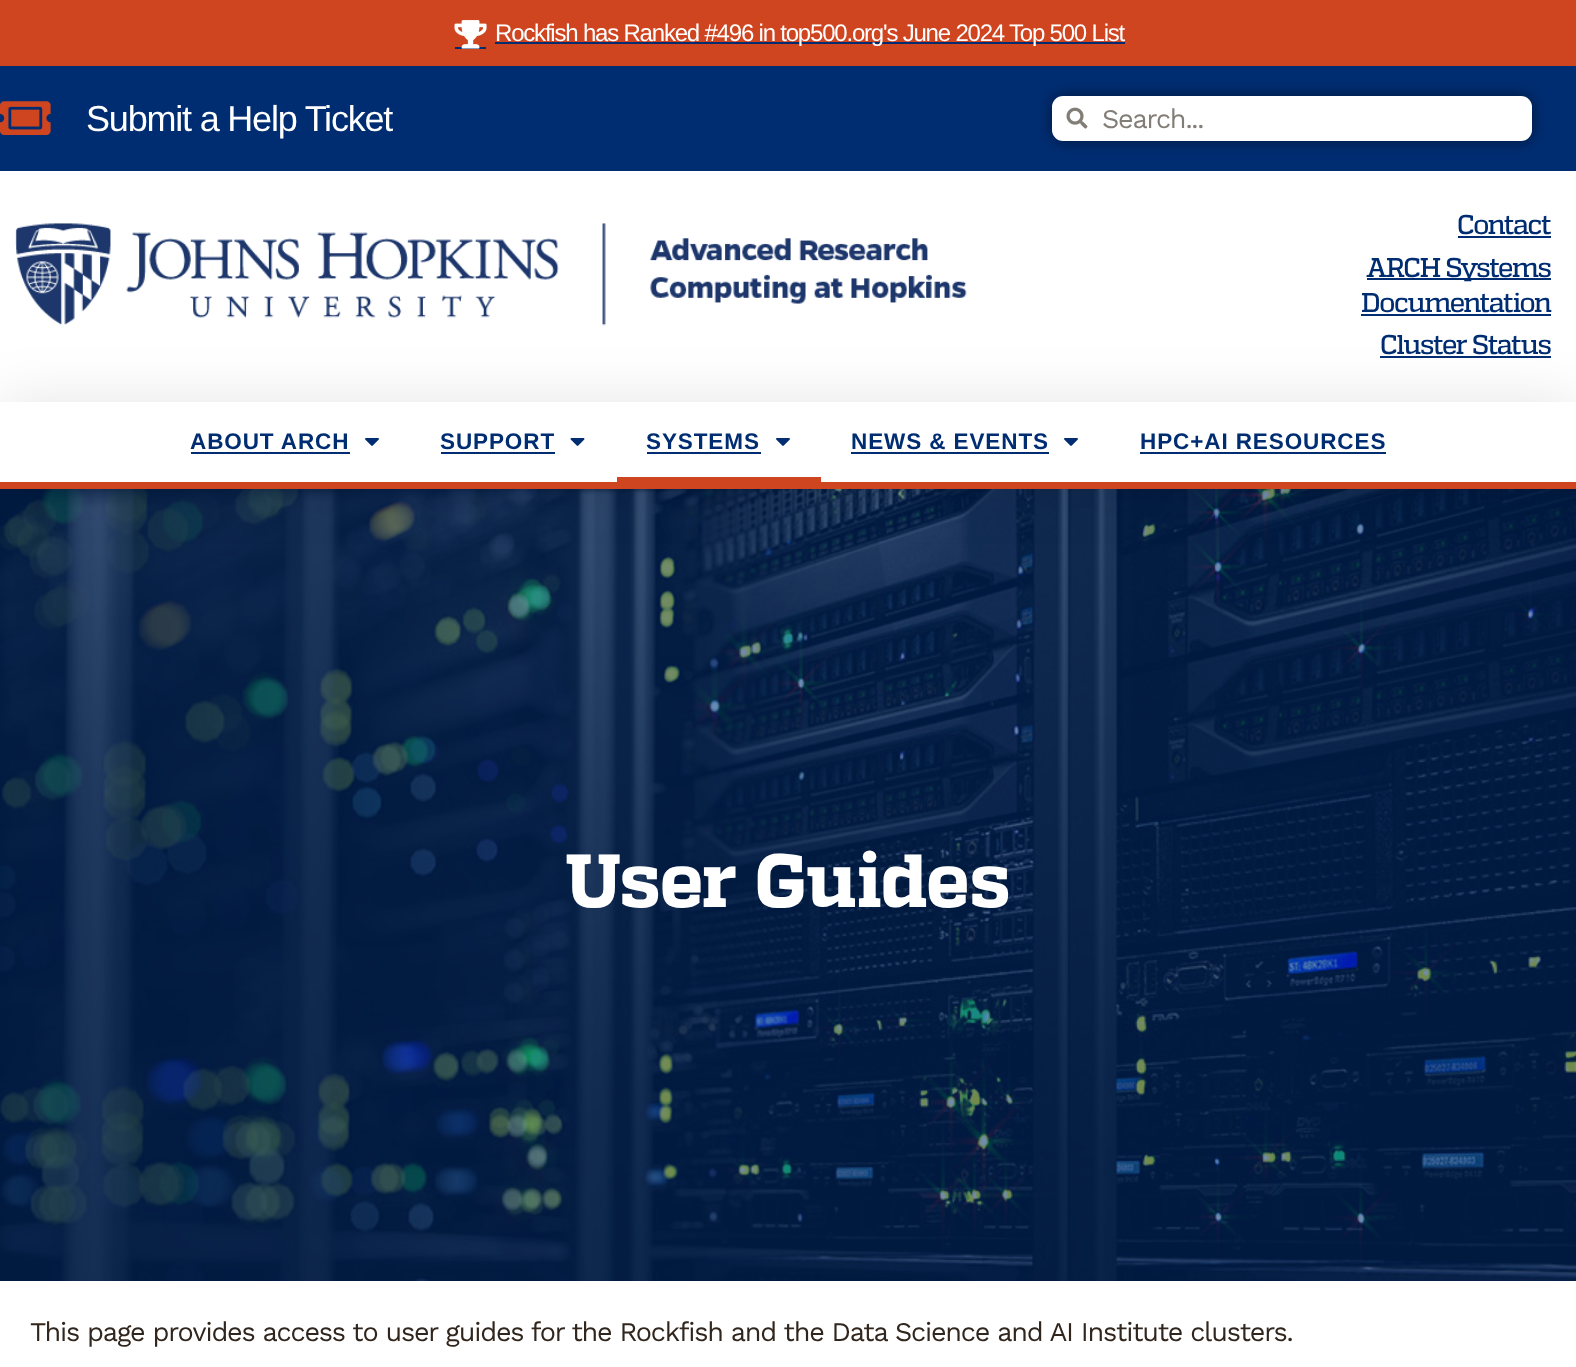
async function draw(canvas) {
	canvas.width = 1576;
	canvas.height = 1367;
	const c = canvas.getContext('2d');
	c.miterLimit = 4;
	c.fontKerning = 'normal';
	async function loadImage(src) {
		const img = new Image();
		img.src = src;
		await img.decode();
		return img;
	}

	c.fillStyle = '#fff';
	c.fillRect(0, 0, 1576, 1367);
	c.fillStyle = '#cf4520';
	c.fillRect(0, 0, 1576, 66);
	c.fillStyle = '#002d72';
	c.fillRect(455, 47, 31, 2);
	c.drawImage(await loadImage('img1.png'), 454, 20, 33, 29);
	c.fillRect(495, 42, 630, 2);
	c.letterSpacing = '-1.2px';
	c.font = '24px Liberation Sans';
	c.fillStyle = '#fff';
	c.fillText('Rockfish has Ranked #496 in top500.org\'s June 2024 Top 500 List', 495, 41);
	c.fillStyle = '#002d72';
	c.fillRect(0, 66, 1576, 105);
	c.drawImage(await loadImage('img2.png'), 0, 101, 51, 34);
	c.font = '36px Liberation Sans';
	c.fillStyle = '#fff';
	c.fillText('Submit a Help Ticket', 86, 131);
	c.fillStyle = '#00000080';
	c.filter = 'blur(7.5px)';
	c.beginPath();
	c.roundRect(1052, 96, 480, 45, 11);
	c.fill();
	c.filter = 'none';
	c.fillStyle = '#fff';
	c.beginPath();
	c.roundRect(1052, 96, 480, 45, 11);
	c.fill();
	c.drawImage(await loadImage('img3.png'), 1066, 107, 22, 22);
	c.font = '27px Work Sans';
	c.fillStyle = '#837d77';
	c.fillText('Search...', 1102, 128);
	c.drawImage(await loadImage('img4.png'), 15, 223, 952, 103);
	c.font = '500 27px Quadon';
	c.fillStyle = '#002d72';
	c.fillText('Contact', 1457, 234);
	c.fillRect(1458, 236, 93, 2);
	c.fillRect(1367, 278, 184, 2);
	c.fillText('ARCH Systems', 1366, 277);
	c.fillText('Documentation', 1361, 312);
	c.fillRect(1361, 314, 190, 2);
	c.fillText('Cluster Status', 1380, 354);
	c.fillRect(1380, 356, 171, 2);
	c.drawImage(await loadImage('img7.png'), 0, 489, 1576, 792);
	c.save();
	c.beginPath();
	c.moveTo(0, 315);
	c.lineTo(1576, 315);
	c.lineTo(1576, 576);
	c.lineTo(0, 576);
	c.closePath();
	c.moveTo(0, 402);
	c.lineTo(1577, 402);
	c.lineTo(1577, 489);
	c.lineTo(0, 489);
	c.closePath();
	c.clip('evenodd');
	c.fillStyle = '#0000001a';
	c.filter = 'blur(28.5px)';
	c.beginPath();
	c.rect(0, 402, 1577, 87);
	c.fill();
	c.filter = 'none';
	c.restore();
	c.fillStyle = '#cf4520';
	c.fillRect(0, 482, 1576, 7);
	c.letterSpacing = '0.9px';
	c.font = 'bold 22.5px Liberation Sans';
	c.fillStyle = '#002d72';
	c.fillText('ABOUT ARCH', 190, 449);
	c.fillRect(191, 452, 159, 2);
	c.drawImage(await loadImage('img5.png'), 365, 438, 14, 8);
	c.fillText('SUPPORT', 440, 449);
	c.fillRect(441, 452, 114, 2);
	c.drawImage(await loadImage('img6.png'), 570, 438, 15, 8);
	c.fillText('SYSTEMS', 646, 449);
	c.fillRect(647, 452, 114, 2);
	c.drawImage(await loadImage('img5.png'), 776, 438, 14, 8);
	c.fillStyle = '#cf4520';
	c.fillRect(617, 477, 204, 5);
	c.fillStyle = '#002d72';
	c.fillText('NEWS & EVENTS', 851, 449);
	c.fillRect(851, 452, 198, 2);
	c.drawImage(await loadImage('img5.png'), 1064, 438, 14, 8);
	c.fillText('HPC+AI RESOURCES', 1140, 449);
	c.fillRect(1140, 452, 246, 2);
	c.letterSpacing = '0px';
	c.font = '800 75px Quadon';
	c.fillStyle = '#fff';
	c.fillText('User Guides', 565, 907);
	c.letterSpacing = '-1.2px';
	c.font = '27px Work Sans';
	c.fillStyle = '#31261d';
	c.fillText('This page provides access to user guides for the Rockfish and the Data Science and AI Institute clusters.', 30, 1341);
}

draw(document.querySelector('canvas'));
